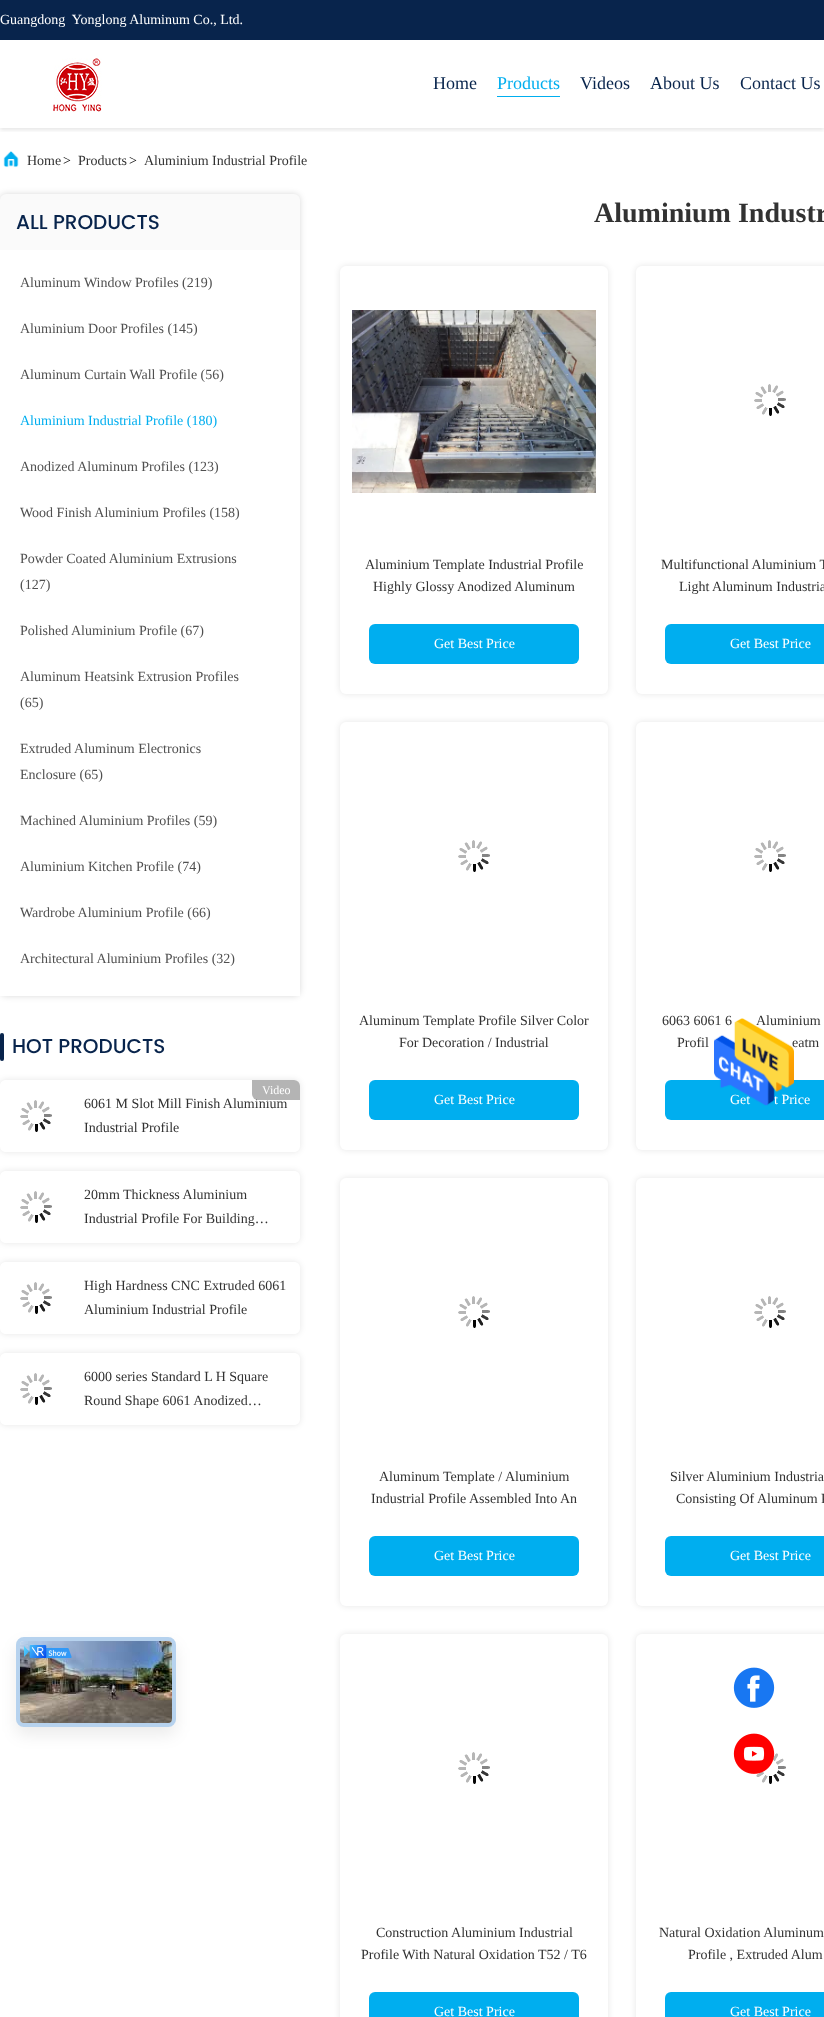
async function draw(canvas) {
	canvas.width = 824;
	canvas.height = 2017;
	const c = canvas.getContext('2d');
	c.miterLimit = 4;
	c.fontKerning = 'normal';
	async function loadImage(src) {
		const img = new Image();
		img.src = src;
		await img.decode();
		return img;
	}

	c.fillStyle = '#fff';
	c.fillRect(0, 0, 824, 2017);
	c.fillStyle = '#08244c';
	c.fillRect(0, 0, 824, 40);
	c.font = '14px Liberation Serif';
	c.fillStyle = '#fff';
	c.fillText('Guangdong  Yonglong Aluminum Co., Ltd.', 0, 24);
	c.save();
	c.beginPath();
	c.rect(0, 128, 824, 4);
	c.clip();
	c.fillStyle = '#0000001a';
	c.filter = 'blur(2px)';
	c.beginPath();
	c.rect(0, 42, 824, 88);
	c.fill();
	c.filter = 'none';
	c.restore();
	c.drawImage(await loadImage('img1.png'), 53, 58, 49, 54);
	c.font = '18px Liberation Serif';
	c.fillStyle = '#08244c';
	c.fillText('Home', 433, 89);
	c.fillStyle = '#00aeef';
	c.fillRect(497, 96, 63, 1);
	c.fillText('Products', 497, 89);
	c.fillStyle = '#08244c';
	for (const [text, x, y] of [
		['Videos', 580, 89],
		['About Us', 650, 89],
		['Contact Us', 740, 89],
	]) {
		c.fillText(text, x, y);
	}
	c.drawImage(await loadImage('img2.png'), 3, 151, 16, 17);
	c.font = '14px Liberation Serif';
	c.fillStyle = '#323232';
	c.fillText('Home', 27, 165);
	c.fillStyle = '#000';
	c.fillText('>', 63, 165);
	c.fillStyle = '#323232';
	c.fillText('Products', 78, 165);
	c.fillStyle = '#000';
	c.fillText('>', 129, 165);
	c.fillStyle = '#323232';
	c.fillText('Aluminium Industrial Profile', 144, 165);
	c.fillStyle = '#00000026';
	c.filter = 'blur(3px)';
	c.beginPath();
	c.roundRect(0, 194, 300, 802, 6);
	c.fill();
	c.filter = 'none';
	c.fillStyle = '#fafafa';
	c.beginPath();
	c.roundRect(0, 194, 300, 56, [6, 6, 0, 0]);
	c.fill();
	c.font = '500 20px Poppins';
	c.fillStyle = '#08244c';
	c.fillText('ALL PRODUCTS', 16, 229);
	c.fillStyle = '#fff';
	c.fillRect(0, 250, 300, 746);
	c.font = '14px Liberation Serif';
	c.fillStyle = '#505050';
	for (const [text, x, y] of [
		['Aluminum Window Profiles (219)', 20, 287],
		['Aluminium Door Profiles (145)', 20, 333],
		['Aluminum Curtain Wall Profile (56)', 20, 379],
	]) {
		c.fillText(text, x, y);
	}
	c.fillStyle = '#00aeef';
	c.fillText('Aluminium Industrial Profile (180)', 20, 425);
	c.fillStyle = '#505050';
	for (const [text, x, y] of [
		['Anodized Aluminum Profiles (123)', 20, 471],
		['Wood Finish Aluminium Profiles (158)', 20, 517],
		['Powder Coated Aluminium Extrusions', 20, 563],
		['(127)', 20, 589],
		['Polished Aluminium Profile (67)', 20, 635],
		['Aluminum Heatsink Extrusion Profiles', 20, 681],
		['(65)', 20, 707],
		['Extruded Aluminum Electronics', 20, 753],
		['Enclosure (65)', 20, 779],
		['Machined Aluminium Profiles (59)', 20, 825],
		['Aluminium Kitchen Profile (74)', 20, 871],
		['Wardrobe Aluminium Profile (66)', 20, 917],
		['Architectural Aluminium Profiles (32)', 20, 963],
	]) {
		c.fillText(text, x, y);
	}
	c.fillStyle = '#08244c';
	c.beginPath();
	c.roundRect(0, 1033, 4, 28, 2);
	c.fill();
	c.font = '500 20px Poppins';
	c.fillText('HOT PRODUCTS', 12, 1053);
	c.save();
	c.beginPath();
	c.moveTo(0, 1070);
	c.lineTo(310, 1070);
	c.lineTo(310, 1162);
	c.lineTo(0, 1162);
	c.closePath();
	c.moveTo(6, 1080);
	c.lineTo(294, 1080);
	c.bezierCurveTo(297.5, 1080, 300, 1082.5, 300, 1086);
	c.lineTo(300, 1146);
	c.bezierCurveTo(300, 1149.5, 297.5, 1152, 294, 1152);
	c.lineTo(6, 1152);
	c.bezierCurveTo(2.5, 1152, 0, 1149.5, 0, 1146);
	c.lineTo(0, 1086);
	c.bezierCurveTo(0, 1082.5, 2.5, 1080, 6, 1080);
	c.closePath();
	c.clip('evenodd');
	c.fillStyle = '#0000001a';
	c.filter = 'blur(3px)';
	c.beginPath();
	c.roundRect(0, 1080, 300, 72, 6);
	c.fill();
	c.filter = 'none';
	c.restore();
	c.font = '14px Liberation Serif';
	c.fillStyle = '#323232';
	c.fillText('6061 M Slot Mill Finish Aluminium', 84, 1108);
	c.fillStyle = '#b4b4b4';
	c.beginPath();
	c.roundRect(252, 1080, 48, 20, [0, 6, 0, 6]);
	c.fill();
	c.font = '12px Liberation Serif';
	c.fillStyle = '#fff';
	c.fillText('Video', 262, 1094);
	c.drawImage(await loadImage('img3.png'), 20, 1100, 32, 32);
	c.font = '14px Liberation Serif';
	c.fillStyle = '#323232';
	c.fillText('Industrial Profile', 84, 1132);
	c.save();
	c.beginPath();
	c.moveTo(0, 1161);
	c.lineTo(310, 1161);
	c.lineTo(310, 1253);
	c.lineTo(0, 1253);
	c.closePath();
	c.moveTo(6, 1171);
	c.lineTo(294, 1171);
	c.bezierCurveTo(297.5, 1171, 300, 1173.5, 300, 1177);
	c.lineTo(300, 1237);
	c.bezierCurveTo(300, 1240.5, 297.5, 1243, 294, 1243);
	c.lineTo(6, 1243);
	c.bezierCurveTo(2.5, 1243, 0, 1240.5, 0, 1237);
	c.lineTo(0, 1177);
	c.bezierCurveTo(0, 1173.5, 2.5, 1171, 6, 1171);
	c.closePath();
	c.clip('evenodd');
	c.fillStyle = '#0000001a';
	c.filter = 'blur(3px)';
	c.beginPath();
	c.roundRect(0, 1171, 300, 72, 6);
	c.fill();
	c.filter = 'none';
	c.restore();
	c.drawImage(await loadImage('img3.png'), 20, 1191, 32, 32);
	c.fillText('20mm Thickness Aluminium', 84, 1199);
	c.fillText('Industrial Profile For Building…', 84, 1223);
	c.save();
	c.beginPath();
	c.moveTo(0, 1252);
	c.lineTo(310, 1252);
	c.lineTo(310, 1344);
	c.lineTo(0, 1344);
	c.closePath();
	c.moveTo(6, 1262);
	c.lineTo(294, 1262);
	c.bezierCurveTo(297.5, 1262, 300, 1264.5, 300, 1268);
	c.lineTo(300, 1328);
	c.bezierCurveTo(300, 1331.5, 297.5, 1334, 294, 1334);
	c.lineTo(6, 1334);
	c.bezierCurveTo(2.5, 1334, 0, 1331.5, 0, 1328);
	c.lineTo(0, 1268);
	c.bezierCurveTo(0, 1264.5, 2.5, 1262, 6, 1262);
	c.closePath();
	c.clip('evenodd');
	c.fillStyle = '#0000001a';
	c.filter = 'blur(3px)';
	c.beginPath();
	c.roundRect(0, 1262, 300, 72, 6);
	c.fill();
	c.filter = 'none';
	c.restore();
	c.drawImage(await loadImage('img3.png'), 20, 1282, 32, 32);
	c.fillText('High Hardness CNC Extruded 6061', 84, 1290);
	c.fillText('Aluminium Industrial Profile', 84, 1314);
	c.save();
	c.beginPath();
	c.moveTo(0, 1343);
	c.lineTo(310, 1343);
	c.lineTo(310, 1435);
	c.lineTo(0, 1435);
	c.closePath();
	c.moveTo(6, 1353);
	c.lineTo(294, 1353);
	c.bezierCurveTo(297.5, 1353, 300, 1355.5, 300, 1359);
	c.lineTo(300, 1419);
	c.bezierCurveTo(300, 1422.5, 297.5, 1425, 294, 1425);
	c.lineTo(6, 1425);
	c.bezierCurveTo(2.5, 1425, 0, 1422.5, 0, 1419);
	c.lineTo(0, 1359);
	c.bezierCurveTo(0, 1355.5, 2.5, 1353, 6, 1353);
	c.closePath();
	c.clip('evenodd');
	c.fillStyle = '#0000001a';
	c.filter = 'blur(3px)';
	c.beginPath();
	c.roundRect(0, 1353, 300, 72, 6);
	c.fill();
	c.filter = 'none';
	c.restore();
	c.drawImage(await loadImage('img3.png'), 20, 1373, 32, 32);
	c.fillText('6000 series Standard L H Square', 84, 1381);
	c.fillText('Round Shape 6061 Anodized…', 84, 1405);
	c.font = 'bold 28px Liberation Serif';
	c.fillText('Aluminium Industr', 594, 222);
	c.fillStyle = '#0000001a';
	c.filter = 'blur(3px)';
	c.beginPath();
	c.roundRect(340, 266, 268, 428, 6);
	c.fill();
	c.filter = 'none';
	c.fillStyle = '#fff';
	c.beginPath();
	c.roundRect(340, 266, 268, 428, 6);
	c.fill();
	c.drawImage(await loadImage('img4.png'), 352, 310, 244, 183);
	c.font = '14px Liberation Serif';
	c.fillStyle = '#323232';
	c.fillText('Aluminium Template Industrial Profile', 365, 569);
	c.fillText('Highly Glossy Anodized Aluminum', 373, 591);
	c.fillStyle = '#00aeef';
	c.beginPath();
	c.roundRect(369, 624, 210, 40, 6);
	c.fill();
	c.fillStyle = '#fff';
	c.fillText('Get Best Price', 434, 648);
	c.fillStyle = '#0000001a';
	c.filter = 'blur(3px)';
	c.beginPath();
	c.roundRect(636, 266, 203, 428, 6);
	c.fill();
	c.filter = 'none';
	c.fillStyle = '#fff';
	c.beginPath();
	c.roundRect(636, 266, 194, 428, 6);
	c.fill();
	c.drawImage(await loadImage('img3.png'), 754, 384, 32, 32);
	c.fillStyle = '#323232';
	c.fillText('Multifunctional Aluminium T', 661, 569);
	c.fillText('Light Aluminum Industria', 679, 591);
	c.fillStyle = '#00aeef';
	c.beginPath();
	c.roundRect(665, 624, 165, 40, 6);
	c.fill();
	c.fillStyle = '#fff';
	c.fillText('Get Best Price', 730, 648);
	c.fillStyle = '#0000001a';
	c.filter = 'blur(3px)';
	c.beginPath();
	c.roundRect(340, 722, 268, 428, 6);
	c.fill();
	c.filter = 'none';
	c.fillStyle = '#fff';
	c.beginPath();
	c.roundRect(340, 722, 268, 428, 6);
	c.fill();
	c.drawImage(await loadImage('img3.png'), 458, 840, 32, 32);
	c.fillStyle = '#323232';
	c.fillText('Aluminum Template Profile Silver Color', 359, 1025);
	c.fillText('For Decoration / Industrial', 399, 1047);
	c.fillStyle = '#00aeef';
	c.beginPath();
	c.roundRect(369, 1080, 210, 40, 6);
	c.fill();
	c.fillStyle = '#fff';
	c.fillText('Get Best Price', 434, 1104);
	c.fillStyle = '#0000001a';
	c.filter = 'blur(3px)';
	c.beginPath();
	c.roundRect(636, 722, 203, 428, 6);
	c.fill();
	c.filter = 'none';
	c.fillStyle = '#fff';
	c.beginPath();
	c.roundRect(636, 722, 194, 428, 6);
	c.fill();
	c.drawImage(await loadImage('img3.png'), 754, 840, 32, 32);
	c.fillStyle = '#323232';
	for (const [text, x, y] of [
		['6063 6061 6', 662, 1025],
		['Aluminium', 756, 1025],
		['Profil', 677, 1047],
		['eatm', 792, 1047],
	]) {
		c.fillText(text, x, y);
	}
	c.fillStyle = '#00aeef';
	c.beginPath();
	c.roundRect(665, 1080, 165, 40, 6);
	c.fill();
	c.fillStyle = '#fff';
	c.fillText('Get', 730, 1104);
	c.fillText('t Price', 774, 1104);
	c.fillStyle = '#0000001a';
	c.filter = 'blur(3px)';
	c.beginPath();
	c.roundRect(340, 1178, 268, 428, 6);
	c.fill();
	c.filter = 'none';
	c.fillStyle = '#fff';
	c.beginPath();
	c.roundRect(340, 1178, 268, 428, 6);
	c.fill();
	c.drawImage(await loadImage('img3.png'), 458, 1296, 32, 32);
	c.fillStyle = '#323232';
	c.fillText('Aluminum Template / Aluminium', 379, 1481);
	c.fillText('Industrial Profile Assembled Into An', 371, 1503);
	c.fillStyle = '#00aeef';
	c.beginPath();
	c.roundRect(369, 1536, 210, 40, 6);
	c.fill();
	c.fillStyle = '#fff';
	c.fillText('Get Best Price', 434, 1560);
	c.fillStyle = '#0000001a';
	c.filter = 'blur(3px)';
	c.beginPath();
	c.roundRect(636, 1178, 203, 428, 6);
	c.fill();
	c.filter = 'none';
	c.fillStyle = '#fff';
	c.beginPath();
	c.roundRect(636, 1178, 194, 428, 6);
	c.fill();
	c.drawImage(await loadImage('img3.png'), 754, 1296, 32, 32);
	c.fillStyle = '#323232';
	c.fillText('Silver Aluminium Industria', 670, 1481);
	c.fillText('Consisting Of Aluminum P', 676, 1503);
	c.fillStyle = '#00aeef';
	c.beginPath();
	c.roundRect(665, 1536, 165, 40, 6);
	c.fill();
	c.fillStyle = '#fff';
	c.fillText('Get Best Price', 730, 1560);
	c.fillStyle = '#0000001a';
	c.filter = 'blur(3px)';
	c.beginPath();
	c.roundRect(340, 1634, 268, 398, 6);
	c.fill();
	c.filter = 'none';
	c.fillStyle = '#fff';
	c.beginPath();
	c.roundRect(340, 1634, 268, 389, 6);
	c.fill();
	c.drawImage(await loadImage('img3.png'), 458, 1752, 32, 32);
	c.fillStyle = '#323232';
	c.fillText('Construction Aluminium Industrial', 376, 1937);
	c.fillText('Profile With Natural Oxidation T52 / T6', 361, 1959);
	c.fillStyle = '#00aeef';
	c.beginPath();
	c.roundRect(369, 1992, 210, 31, 6);
	c.fill();
	c.fillStyle = '#fff';
	c.fillText('Get Best Price', 434, 2016);
	c.fillStyle = '#0000001a';
	c.filter = 'blur(3px)';
	c.beginPath();
	c.roundRect(636, 1634, 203, 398, 6);
	c.fill();
	c.filter = 'none';
	c.fillStyle = '#fff';
	c.beginPath();
	c.roundRect(636, 1634, 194, 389, 6);
	c.fill();
	c.drawImage(await loadImage('img5.png'), 756, 1753, 30, 31);
	c.fillStyle = '#323232';
	c.fillText('Natural Oxidation Aluminum', 659, 1937);
	c.fillText('Profile , Extruded Alum', 688, 1959);
	c.fillStyle = '#00aeef';
	c.beginPath();
	c.roundRect(665, 1992, 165, 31, 6);
	c.fill();
	c.fillStyle = '#fff';
	c.fillText('Get Best Price', 730, 2016);
	c.drawImage(await loadImage('img6.png'), 714, 1018, 80, 88);
	c.fillStyle = '#00000014';
	c.filter = 'blur(8px)';
	c.beginPath();
	c.roundRect(16, 1645, 160, 90, 8);
	c.fill();
	c.filter = 'none';
	c.fillStyle = '#eee';
	c.beginPath();
	c.roundRect(16, 1637, 160, 90, 8);
	c.fill();
	c.beginPath();
	c.roundRect(18, 1639, 156, 86, 6);
	c.strokeStyle = '#0478ed3d';
	c.lineWidth = 4;
	c.stroke();
	c.drawImage(await loadImage('img7.png'), 20, 1641, 152, 82);
	c.drawImage(await loadImage('img8.png'), 24, 1645, 48, 13);
	c.drawImage(await loadImage('img9.png'), 733, 1667, 42, 41);
	c.fillStyle = '#fff';
	c.beginPath();
	c.arc(753, 1753, 15, 0, 2 * Math.PI);
	c.fill();
	c.drawImage(await loadImage('img10.png'), 733, 1733, 42, 41);
}

draw(document.querySelector('canvas'));
